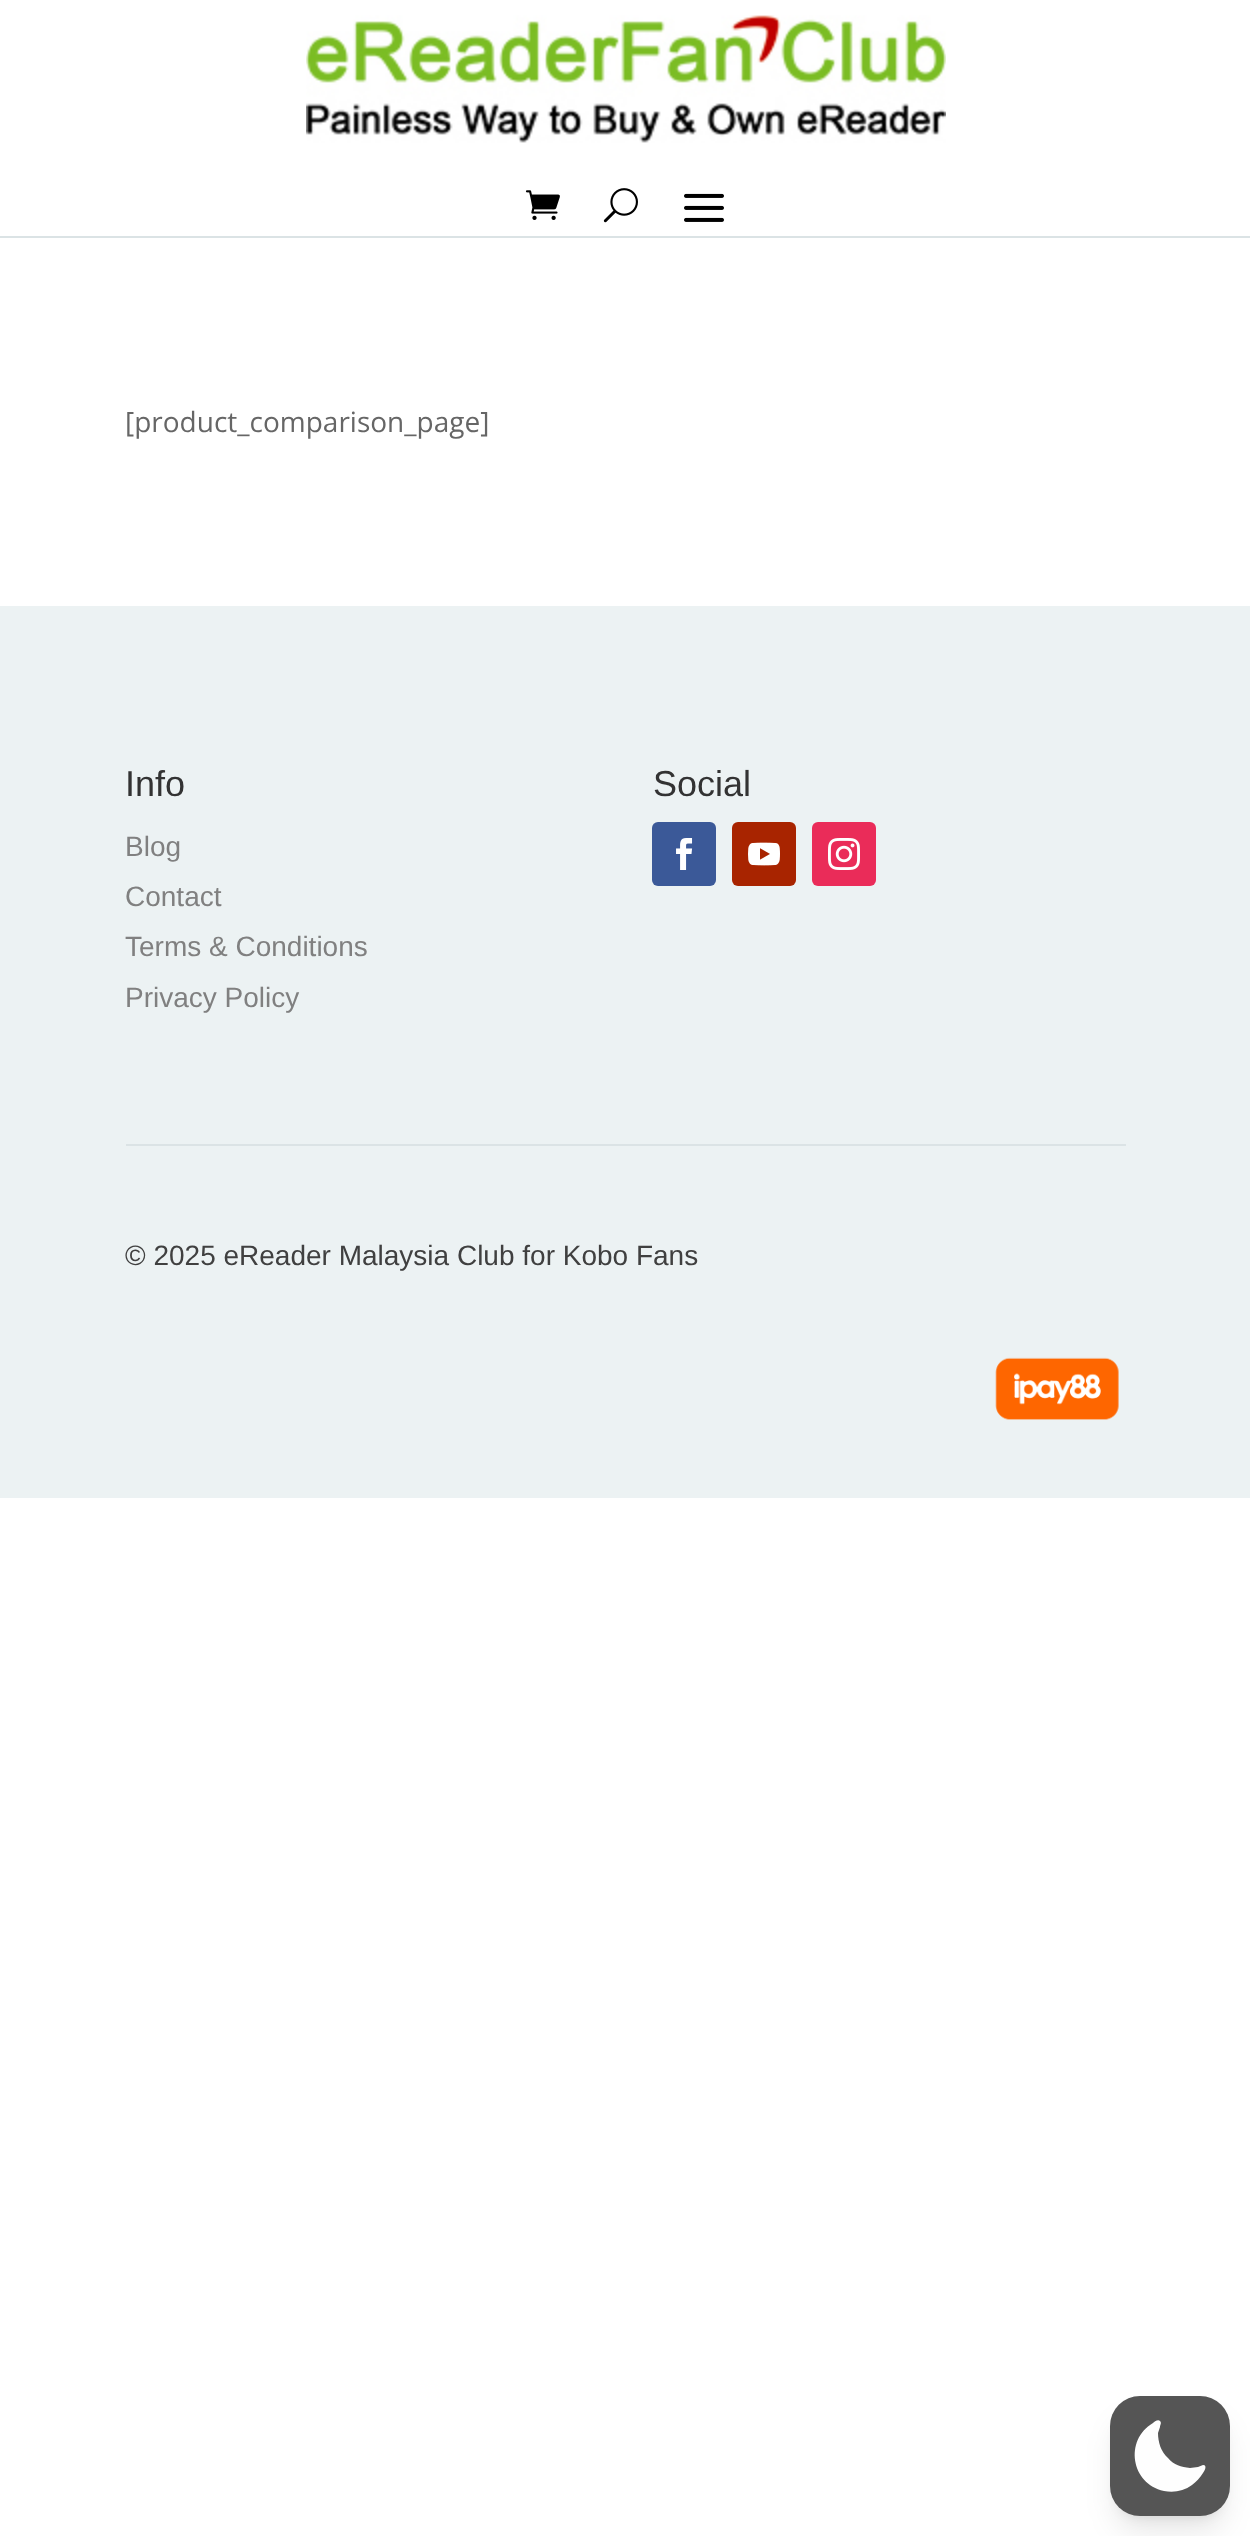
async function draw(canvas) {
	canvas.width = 1250;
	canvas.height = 2536;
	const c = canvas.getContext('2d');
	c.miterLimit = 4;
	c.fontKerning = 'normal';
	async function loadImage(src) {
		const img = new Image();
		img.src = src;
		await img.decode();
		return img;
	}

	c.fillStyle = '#fff';
	c.fillRect(0, 0, 1250, 2536);
	c.fillStyle = '#dbe3e5';
	c.fillRect(0, 236, 1250, 2);
	c.drawImage(await loadImage('img1.png'), 306, 15, 640, 128);
	c.drawImage(await loadImage('img2.png'), 525, 190, 35, 30);
	c.drawImage(await loadImage('img3.png'), 603, 188, 35, 35);
	c.drawImage(await loadImage('img4.png'), 684, 193, 40, 29);
	c.font = '28px Open Sans';
	c.fillStyle = '#666';
	c.fillText('[product_comparison_page]', 125, 432);
	c.fillStyle = '#ecf2f3';
	c.fillRect(0, 606, 1250, 892);
	c.font = '36px Liberation Sans';
	c.fillStyle = '#333';
	c.fillText('Info', 125, 796);
	c.font = '28px Liberation Sans';
	c.fillStyle = '#808080';
	for (const [text, x, y] of [
		['Blog', 125, 856],
		['Contact', 125, 906],
		['Terms & Conditions', 125, 956],
		['Privacy Policy', 125, 1007],
	]) {
		c.fillText(text, x, y);
	}
	c.font = '36px Liberation Sans';
	c.fillStyle = '#333';
	c.fillText('Social', 653, 796);
	c.fillStyle = '#3b5998';
	c.beginPath();
	c.roundRect(652, 822, 64, 64, 6);
	c.fill();
	c.drawImage(await loadImage('img5.png'), 676, 838, 17, 32);
	c.fillStyle = '#a82400';
	c.beginPath();
	c.roundRect(732, 822, 64, 64, 6);
	c.fill();
	c.drawImage(await loadImage('img6.png'), 748, 842, 32, 24);
	c.fillStyle = '#ea2c59';
	c.beginPath();
	c.roundRect(812, 822, 64, 64, 6);
	c.fill();
	c.drawImage(await loadImage('img7.png'), 828, 838, 32, 32);
	c.fillStyle = '#dbe3e5';
	c.fillRect(126, 1144, 1000, 2);
	c.font = '28px Liberation Sans';
	c.fillStyle = '#404040';
	c.fillText('© 2025 eReader Malaysia Club for Kobo Fans', 125, 1265);
	c.drawImage(await loadImage('img8.png'), 995, 1357, 124, 63);
	c.fillStyle = '#0000001a';
	c.filter = 'blur(6px)';
	c.beginPath();
	c.roundRect(1118, 2412, 104, 104, 22);
	c.fill();
	c.filter = 'none';
	c.filter = 'blur(15px)';
	c.beginPath();
	c.roundRect(1116, 2422, 108, 108, 24);
	c.fill();
	c.filter = 'none';
	c.fillStyle = '#555';
	c.beginPath();
	c.roundRect(1110, 2396, 120, 120, 30);
	c.fill();
	c.fillStyle = '#fefefe';
	c.beginPath();
	c.moveTo(1160, 2421);
	c.bezierCurveTo(1162, 2423, 1160, 2425, 1160, 2427);
	c.lineTo(1158, 2433);
	c.bezierCurveTo(1158, 2442, 1161, 2452, 1168, 2458);
	c.bezierCurveTo(1174, 2465, 1181, 2467, 1190, 2468);
	c.lineTo(1198, 2467);
	c.lineTo(1203, 2465);
	c.bezierCurveTo(1208, 2465, 1204, 2472, 1203, 2473);
	c.bezierCurveTo(1200, 2478, 1196, 2482, 1192, 2485);
	c.bezierCurveTo(1184, 2491, 1174, 2493, 1164, 2491);
	c.bezierCurveTo(1131, 2484, 1124, 2440, 1153, 2423);
	c.bezierCurveTo(1154, 2422, 1158, 2419, 1160, 2421);
	c.closePath();
	c.fill('evenodd');
}

draw(document.querySelector('canvas'));
